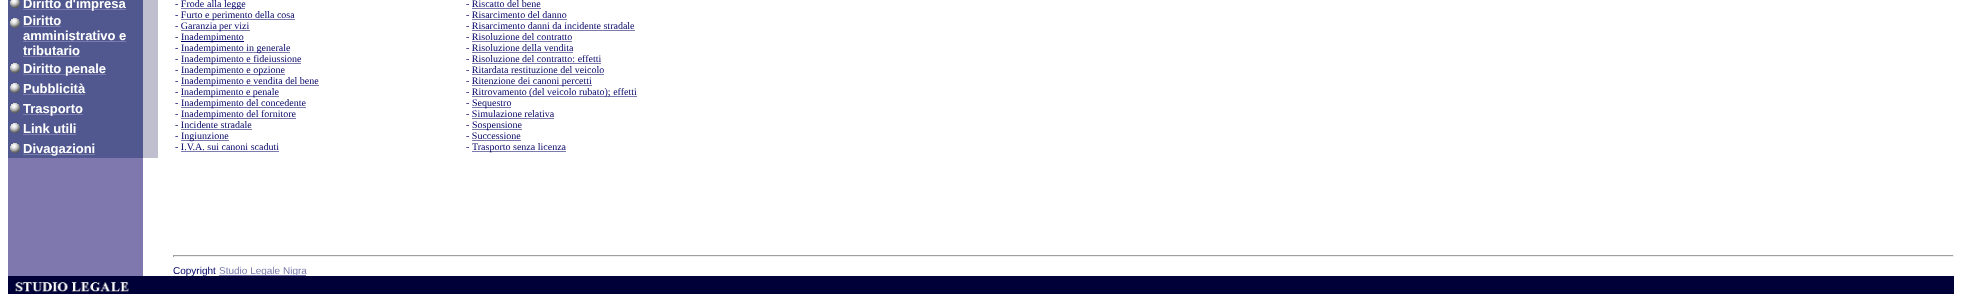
async function draw(canvas) {
	canvas.width = 1962;
	canvas.height = 302;
	const c = canvas.getContext('2d');
	c.miterLimit = 4;
	c.fontKerning = 'normal';
	async function loadImage(src) {
		const img = new Image();
		img.src = src;
		await img.decode();
		return img;
	}

	c.fillStyle = '#fff';
	c.fillRect(0, 0, 1962, 302);
	c.fillStyle = '#7f78af';
	c.fillRect(8, 158, 135, 118);
	c.fillStyle = '#50588f';
	c.fillRect(8, 0, 135, 13);
	c.drawImage(await loadImage('img1.png'), 10, 0, 10, 8);
	c.fillStyle = '#7a7aad';
	c.fillRect(23, 9, 103, 1);
	c.font = 'bold 13px Liberation Sans';
	c.fillStyle = '#fff';
	c.fillText('Diritto d\'impresa', 23, 8);
	c.fillStyle = '#bfbfcf';
	c.fillRect(143, 0, 15, 158);
	c.fillStyle = '#50588f';
	c.fillRect(8, 13, 135, 45);
	c.drawImage(await loadImage('img2.png'), 10, 18, 10, 10);
	c.fillStyle = '#fff';
	c.fillText('Diritto', 23, 25);
	c.fillStyle = '#7a7aad';
	c.fillRect(23, 26, 38, 1);
	c.fillStyle = '#fff';
	c.fillText('amministrativo e', 23, 40);
	c.fillStyle = '#7a7aad';
	c.fillRect(23, 41, 103, 1);
	c.fillStyle = '#fff';
	c.fillText('tributario', 23, 55);
	c.fillStyle = '#7a7aad';
	c.fillRect(23, 56, 57, 1);
	c.fillStyle = '#50588f';
	c.fillRect(8, 58, 135, 20);
	c.drawImage(await loadImage('img2.png'), 10, 63, 10, 10);
	c.fillStyle = '#7a7aad';
	c.fillRect(23, 74, 83, 1);
	c.fillStyle = '#fff';
	c.fillText('Diritto penale', 23, 73);
	c.fillStyle = '#50588f';
	c.fillRect(8, 78, 135, 20);
	c.drawImage(await loadImage('img2.png'), 10, 83, 10, 10);
	c.fillStyle = '#fff';
	c.fillText('Pubblicità', 23, 93);
	c.fillStyle = '#7a7aad';
	c.fillRect(23, 94, 62, 1);
	c.fillStyle = '#50588f';
	c.fillRect(8, 98, 135, 20);
	c.drawImage(await loadImage('img2.png'), 10, 103, 10, 10);
	c.fillStyle = '#7a7aad';
	c.fillRect(23, 114, 60, 1);
	c.fillStyle = '#fff';
	c.fillText('Trasporto', 23, 113);
	c.fillStyle = '#50588f';
	c.fillRect(8, 118, 135, 20);
	c.drawImage(await loadImage('img2.png'), 10, 123, 10, 10);
	c.fillStyle = '#fff';
	c.fillText('Link utili', 23, 133);
	c.fillStyle = '#7a7aad';
	c.fillRect(23, 134, 53, 1);
	c.fillStyle = '#50588f';
	c.fillRect(8, 138, 135, 20);
	c.drawImage(await loadImage('img2.png'), 10, 143, 10, 10);
	c.fillStyle = '#7a7aad';
	c.fillRect(23, 154, 72, 1);
	c.fillStyle = '#fff';
	c.fillText('Divagazioni', 23, 153);
	c.font = '10px Liberation Serif';
	c.fillStyle = '#006';
	c.fillText('- Frode', 175, 7);
	c.fillStyle = '#7a7aad';
	c.fillRect(181, 8, 64, 1);
	c.fillStyle = '#006';
	c.fillText('alla legge', 207, 7);
	c.fillText('- Furto', 175, 18);
	c.fillStyle = '#7a7aad';
	c.fillRect(181, 19, 114, 1);
	c.fillStyle = '#006';
	c.fillText('e perimento della cosa', 205, 18);
	c.fillText('- Garanzia', 175, 29);
	c.fillStyle = '#7a7aad';
	c.fillRect(181, 30, 69, 1);
	c.fillStyle = '#006';
	c.fillText('per vizi', 219, 29);
	c.fillText('-', 175, 40);
	c.fillRect(181, 41, 63, 1);
	c.fillText('Inadempimento', 181, 40);
	c.fillText('-', 175, 51);
	c.fillStyle = '#7a7aad';
	c.fillRect(181, 52, 109, 1);
	c.fillStyle = '#006';
	c.fillText('Inadempimento in generale', 181, 51);
	c.fillText('-', 175, 62);
	c.fillStyle = '#7a7aad';
	c.fillRect(181, 63, 120, 1);
	c.fillStyle = '#006';
	c.fillText('Inadempimento e fideiussione', 181, 62);
	c.fillText('-', 175, 73);
	c.fillStyle = '#7a7aad';
	c.fillRect(181, 74, 104, 1);
	c.fillStyle = '#006';
	c.fillText('Inadempimento e opzione', 181, 73);
	c.fillText('-', 175, 84);
	c.fillStyle = '#7a7aad';
	c.fillRect(181, 85, 138, 1);
	c.fillStyle = '#006';
	c.fillText('Inadempimento e vendita del bene', 181, 84);
	c.fillText('- I', 175, 95);
	c.fillStyle = '#7a7aad';
	c.fillRect(181, 96, 98, 1);
	c.fillStyle = '#006';
	c.fillText('nadempimento e penale', 184, 95);
	c.fillText('-', 175, 106);
	c.fillStyle = '#7a7aad';
	c.fillRect(181, 107, 125, 1);
	c.fillStyle = '#006';
	c.fillText('Inadempimento del concedente', 181, 106);
	c.fillText('-', 175, 117);
	c.fillStyle = '#7a7aad';
	c.fillRect(181, 118, 115, 1);
	c.fillStyle = '#006';
	c.fillText('Inadempimento del fornitore', 181, 117);
	c.fillText('- Incidente stradale', 175, 128);
	c.fillStyle = '#7a7aad';
	c.fillRect(181, 129, 71, 1);
	c.fillStyle = '#006';
	c.fillText('-', 175, 139);
	c.fillStyle = '#7a7aad';
	c.fillRect(181, 140, 48, 1);
	c.fillStyle = '#006';
	c.fillText('Ingiunzione', 181, 139);
	c.fillText('- I.V.A. sui canoni scaduti', 175, 150);
	c.fillStyle = '#7a7aad';
	c.fillRect(181, 151, 98, 1);
	c.fillStyle = '#006';
	c.fillText('- Riscatto del bene', 466, 7);
	c.fillStyle = '#7a7aad';
	c.fillRect(472, 8, 69, 1);
	c.fillStyle = '#006';
	c.fillText('- Risarcimento del danno', 466, 18);
	c.fillStyle = '#7a7aad';
	c.fillRect(472, 19, 95, 1);
	c.fillStyle = '#006';
	c.fillText('- Risarcimento danni da incidente stradale', 466, 29);
	c.fillStyle = '#7a7aad';
	c.fillRect(472, 30, 163, 1);
	c.fillStyle = '#006';
	c.fillText('- Risoluzione del contratto', 466, 40);
	c.fillStyle = '#7a7aad';
	c.fillRect(472, 41, 100, 1);
	c.fillStyle = '#006';
	c.fillText('- Risoluzione della vendita', 466, 51);
	c.fillStyle = '#7a7aad';
	c.fillRect(472, 52, 101, 1);
	c.fillStyle = '#006';
	c.fillText('- Risoluzione del contratto: effetti', 466, 62);
	c.fillStyle = '#7a7aad';
	c.fillRect(472, 63, 129, 1);
	c.fillStyle = '#006';
	c.fillText('- Ritardata restituzione del veicolo', 466, 73);
	c.fillStyle = '#7a7aad';
	c.fillRect(472, 74, 132, 1);
	c.fillStyle = '#006';
	c.fillText('- Ritenzione', 466, 84);
	c.fillStyle = '#7a7aad';
	c.fillRect(472, 85, 120, 1);
	c.fillStyle = '#006';
	c.fillText('dei canoni percetti', 518, 84);
	c.fillText('- Ritrovamento', 466, 95);
	c.fillStyle = '#7a7aad';
	c.fillRect(472, 96, 165, 1);
	c.fillStyle = '#006';
	c.fillText('(del veicolo rubato); effetti', 529, 95);
	c.fillText('-', 466, 106);
	c.fillStyle = '#7a7aad';
	c.fillRect(472, 107, 39, 1);
	c.fillStyle = '#006';
	c.fillText('Sequestro', 472, 106);
	c.fillText('- Simulazione relativa', 466, 117);
	c.fillStyle = '#7a7aad';
	c.fillRect(472, 118, 82, 1);
	c.fillStyle = '#006';
	c.fillText('-', 466, 128);
	c.fillStyle = '#7a7aad';
	c.fillRect(472, 129, 50, 1);
	c.fillStyle = '#006';
	c.fillText('Sospensione', 472, 128);
	c.fillText('- Successione', 466, 139);
	c.fillStyle = '#7a7aad';
	c.fillRect(472, 140, 49, 1);
	c.fillStyle = '#006';
	c.fillText('-', 466, 150);
	c.fillStyle = '#7a7aad';
	c.fillRect(472, 151, 94, 1);
	c.fillStyle = '#006';
	c.fillText('Trasporto senza licenza', 472, 150);
	for (const [x, y, w, h, color] of [
		[173, 255, 1781, 1, '#9f9f9f'],
		[1953, 255, 1, 2, '#eee'],
		[173, 256, 1781, 1, '#eee'],
		[173, 255, 1, 2, '#9f9f9f'],
		[8, 276, 1946, 18, '#000038'],
	]) {
		c.fillStyle = color;
		c.fillRect(x, y, w, h);
	}
	c.font = '10px Liberation Sans';
	c.fillStyle = '#006';
	c.fillText('Copyright', 173, 274);
	c.fillStyle = '#7a7aad';
	c.fillRect(219, 275, 87, 1);
	c.fillText('Studio Legale Nigra', 219, 274);
	c.drawImage(await loadImage('img3.png'), 15, 282, 114, 10);
}

draw(document.querySelector('canvas'));
